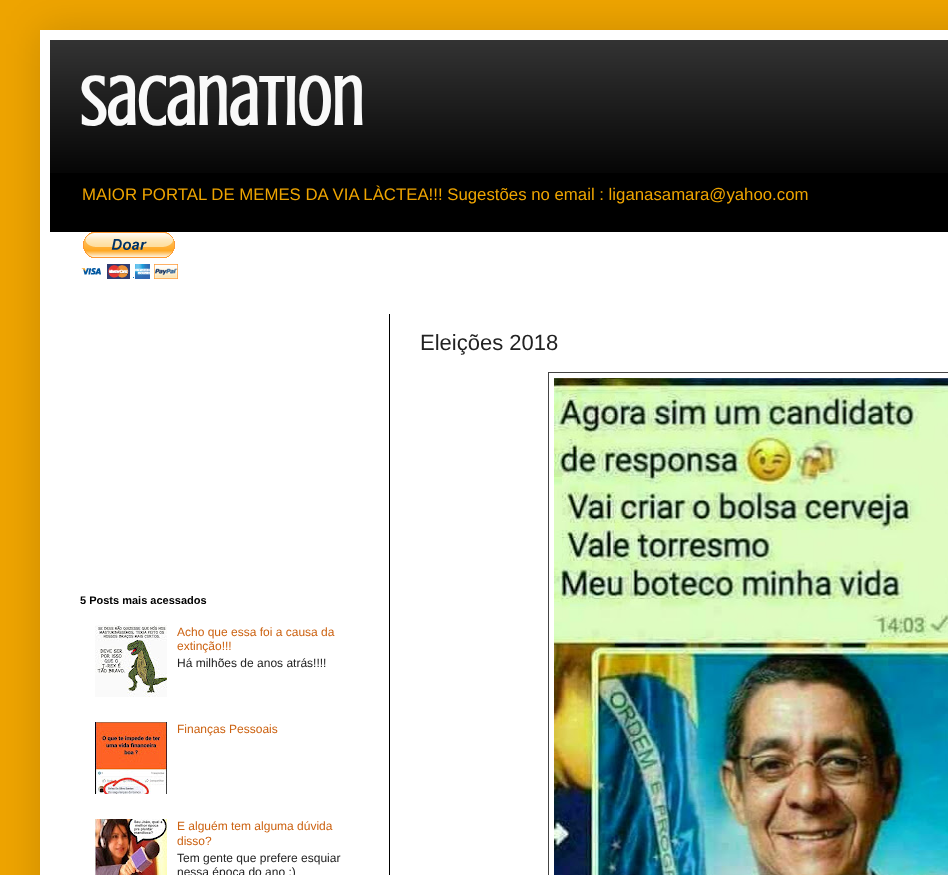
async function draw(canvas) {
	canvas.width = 948;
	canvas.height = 875;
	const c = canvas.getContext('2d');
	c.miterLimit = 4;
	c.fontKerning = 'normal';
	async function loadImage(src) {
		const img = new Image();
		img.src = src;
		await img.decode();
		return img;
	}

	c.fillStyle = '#eea400';
	c.fillRect(0, 0, 948, 875);
	c.fillStyle = '#00000026';
	c.filter = 'blur(20px)';
	c.beginPath();
	c.rect(40, 30, 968, 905);
	c.fill();
	c.filter = 'none';
	c.fillStyle = '#fff';
	c.fillRect(40, 30, 908, 845);
	c.fillStyle = '#000';
	c.fillRect(50, 40, 898, 192);
	c.drawImage(await loadImage('img1.png'), 50, 40, 898, 133);
	c.font = 'bold 70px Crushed';
	c.fillStyle = '#f9f9f9';
	c.fillText('sacanation', 80, 125);
	c.font = '16.8px Liberation Sans';
	c.fillStyle = '#eea400';
	c.fillText('MAIOR PORTAL DE MEMES DA VIA LÀCTEA!!! Sugestões no email : liganasamara@yahoo.com', 82, 200);
	c.drawImage(await loadImage('img2.png'), 81, 232, 97, 47);
	c.fillStyle = '#000';
	c.fillRect(389, 314, 1, 561);
	c.font = '22px Liberation Sans';
	c.fillStyle = '#222';
	c.fillText('Eleições 2018', 420, 350);
	c.strokeStyle = '#444';
	c.strokeRect(548.5, 372.5, 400, 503);
	c.drawImage(await loadImage('img3.png'), 554, 378, 394, 497);
	c.font = 'bold 11px Liberation Sans';
	c.fillStyle = '#000';
	c.fillText('5 Posts mais acessados', 80, 604);
	c.drawImage(await loadImage('img4.png'), 95, 625, 72, 72);
	c.font = '12px Liberation Sans';
	c.fillStyle = '#cc6211';
	c.fillText('Acho que essa foi a causa da', 177, 636);
	c.fillText('extinção!!!', 177, 650);
	c.fillStyle = '#222';
	c.fillText('Há milhões de anos atrás!!!!', 177, 667);
	c.drawImage(await loadImage('img5.png'), 95, 722, 72, 72);
	c.fillStyle = '#cc6211';
	c.fillText('Finanças Pessoais', 177, 733);
	c.drawImage(await loadImage('img6.png'), 95, 819, 72, 56);
	c.fillText('E alguém tem alguma dúvida', 177, 830);
	c.fillText('disso?', 177, 845);
	c.fillStyle = '#222';
	c.fillText('Tem gente que prefere esquiar', 177, 862);
	c.fillText('nessa época do ano :)', 177, 876);
}

draw(document.querySelector('canvas'));
